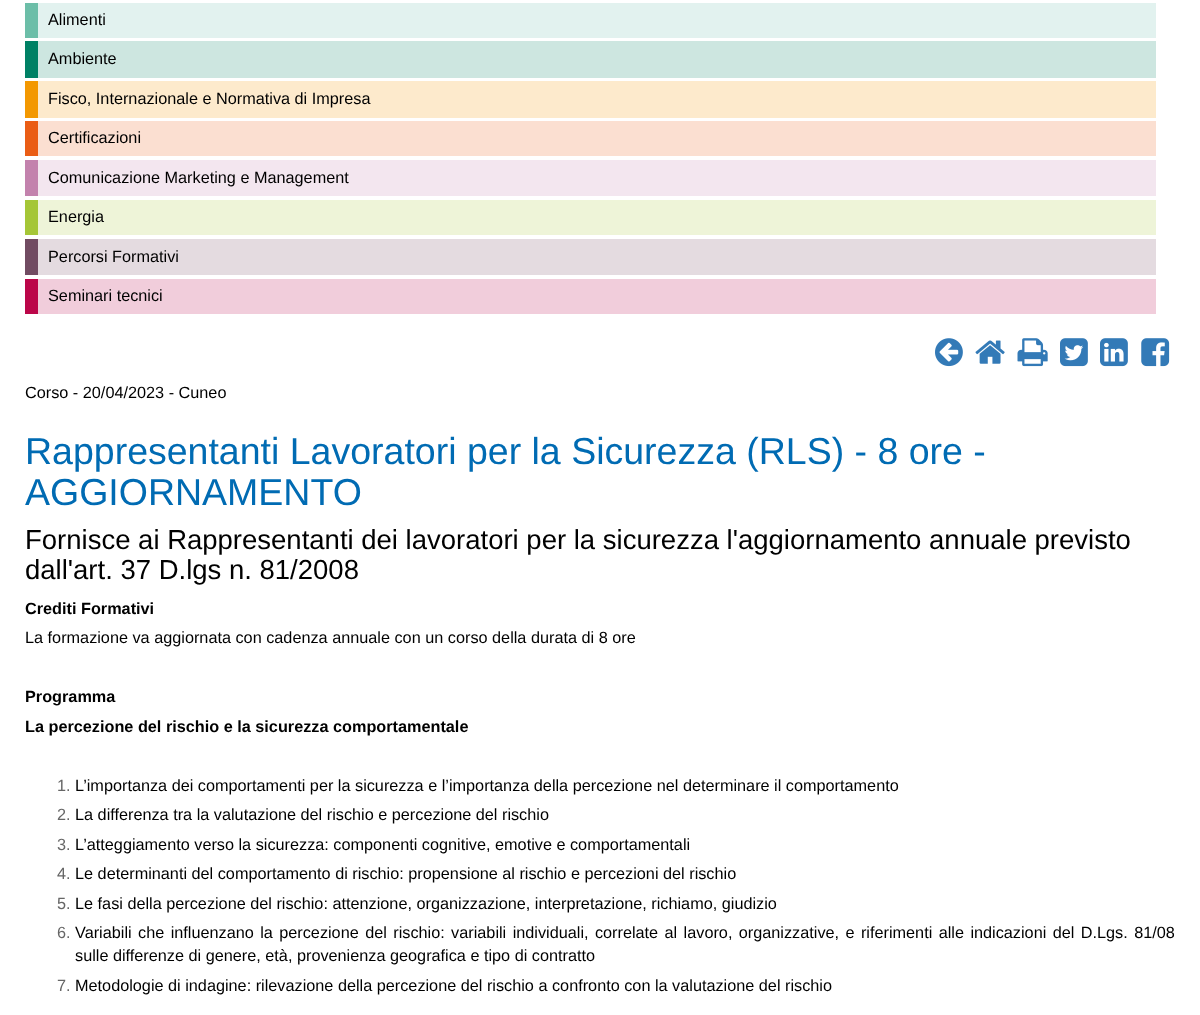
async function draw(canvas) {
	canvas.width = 1200;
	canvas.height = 1015;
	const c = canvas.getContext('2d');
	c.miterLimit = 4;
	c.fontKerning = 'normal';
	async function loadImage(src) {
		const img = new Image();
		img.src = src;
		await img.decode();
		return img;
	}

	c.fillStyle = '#fff';
	c.fillRect(0, 0, 1200, 1015);
	c.fillStyle = '#e2f2ef';
	c.fillRect(38, 3, 1118, 35);
	c.fillStyle = '#6cbea8';
	c.fillRect(25, 3, 13, 35);
	c.font = '16.25px Liberation Sans';
	c.fillStyle = '#000';
	c.fillText('Alimenti', 48, 25);
	c.fillStyle = '#cde6e0';
	c.fillRect(38, 41, 1118, 37);
	c.fillStyle = '#008165';
	c.fillRect(25, 41, 13, 37);
	c.fillStyle = '#000';
	c.fillText('Ambiente', 48, 64);
	c.fillStyle = '#fdeacc';
	c.fillRect(38, 81, 1118, 37);
	c.fillStyle = '#f39801';
	c.fillRect(25, 81, 13, 37);
	c.fillStyle = '#000';
	c.fillText('Fisco, Internazionale e Normativa di Impresa', 48, 104);
	c.fillStyle = '#fbdfd1';
	c.fillRect(38, 121, 1118, 35);
	c.fillStyle = '#ea5d15';
	c.fillRect(25, 121, 13, 35);
	c.fillStyle = '#000';
	c.fillText('Certificazioni', 48, 143);
	c.fillStyle = '#f3e6ef';
	c.fillRect(38, 160, 1118, 36);
	c.fillStyle = '#c382ad';
	c.fillRect(25, 160, 13, 36);
	c.fillStyle = '#000';
	c.fillText('Comunicazione Marketing e Management', 48, 183);
	c.fillStyle = '#eef4d8';
	c.fillRect(38, 200, 1118, 35);
	c.fillStyle = '#a5c637';
	c.fillRect(25, 200, 13, 35);
	c.fillStyle = '#000';
	c.fillText('Energia', 48, 222);
	c.fillStyle = '#e4dbe0';
	c.fillRect(38, 239, 1118, 36);
	c.fillStyle = '#714b62';
	c.fillRect(25, 239, 13, 36);
	c.fillStyle = '#000';
	c.fillText('Percorsi Formativi', 48, 262);
	c.fillStyle = '#f1cddb';
	c.fillRect(38, 279, 1118, 35);
	c.fillStyle = '#bb0649';
	c.fillRect(25, 279, 13, 35);
	c.fillStyle = '#000';
	c.fillText('Seminari tecnici', 48, 301);
	c.drawImage(await loadImage('img1.png'), 935, 338, 28, 29);
	c.drawImage(await loadImage('img2.png'), 975, 340, 30, 24);
	c.drawImage(await loadImage('img3.png'), 1017, 338, 31, 29);
	c.drawImage(await loadImage('img4.png'), 1060, 338, 28, 29);
	c.drawImage(await loadImage('img5.png'), 1100, 338, 28, 29);
	c.drawImage(await loadImage('img6.png'), 1141, 338, 29, 29);
	c.fillText('Corso - 20/04/2023 - Cuneo', 25, 398);
	c.font = '37.5px Liberation Sans';
	c.fillStyle = '#006bb3';
	c.fillText('Rappresentanti Lavoratori per la Sicurezza (RLS) - 8 ore -', 25, 464);
	c.fillText('AGGIORNAMENTO', 25, 505);
	c.font = '27.5px Liberation Sans';
	c.fillStyle = '#000';
	c.fillText('Fornisce ai Rappresentanti dei lavoratori per la sicurezza l\'aggiornamento annuale previsto', 25, 549);
	c.fillText('dall\'art. 37 D.lgs n. 81/2008', 25, 579);
	c.font = 'bold 16.25px Liberation Sans';
	c.fillText('Crediti Formativi', 25, 614);
	c.font = '16.25px Liberation Sans';
	c.fillText('La formazione va aggiornata con cadenza annuale con un corso della durata di 8 ore', 25, 643);
	c.font = 'bold 16.25px Liberation Sans';
	c.fillText('Programma', 25, 702);
	c.fillText('La percezione del rischio e la sicurezza comportamentale', 25, 732);
	c.font = '16.25px Liberation Sans';
	c.fillStyle = '#666';
	c.fillText('1.', 57, 791);
	c.fillStyle = '#000';
	c.fillText('L’importanza dei comportamenti per la sicurezza e l’importanza della percezione nel determinare il comportamento', 75, 791);
	c.fillStyle = '#666';
	c.fillText('2.', 57, 820);
	c.fillStyle = '#000';
	c.fillText('La differenza tra la valutazione del rischio e percezione del rischio', 75, 820);
	c.fillStyle = '#666';
	c.fillText('3.', 57, 850);
	c.fillStyle = '#000';
	c.fillText('L’atteggiamento verso la sicurezza: componenti cognitive, emotive e comportamentali', 75, 850);
	c.fillStyle = '#666';
	c.fillText('4.', 57, 879);
	c.fillStyle = '#000';
	c.fillText('Le determinanti del comportamento di rischio: propensione al rischio e percezioni del rischio', 75, 879);
	c.fillStyle = '#666';
	c.fillText('5.', 57, 909);
	c.fillStyle = '#000';
	c.fillText('Le fasi della percezione del rischio: attenzione, organizzazione, interpretazione, richiamo, giudizio', 75, 909);
	c.fillStyle = '#666';
	c.fillText('6.', 57, 938);
	c.wordSpacing = '1.9px';
	c.fillStyle = '#000';
	c.fillText('Variabili che influenzano la percezione del rischio: variabili individuali, correlate al lavoro, organizzative, e riferimenti alle indicazioni del D.Lgs. 81/08', 75, 938);
	c.wordSpacing = '0px';
	c.fillText('sulle differenze di genere, età, provenienza geografica e tipo di contratto', 75, 961);
	c.fillStyle = '#666';
	c.fillText('7.', 57, 991);
	c.fillStyle = '#000';
	c.fillText('Metodologie di indagine: rilevazione della percezione del rischio a confronto con la valutazione del rischio', 75, 991);
}

draw(document.querySelector('canvas'));
